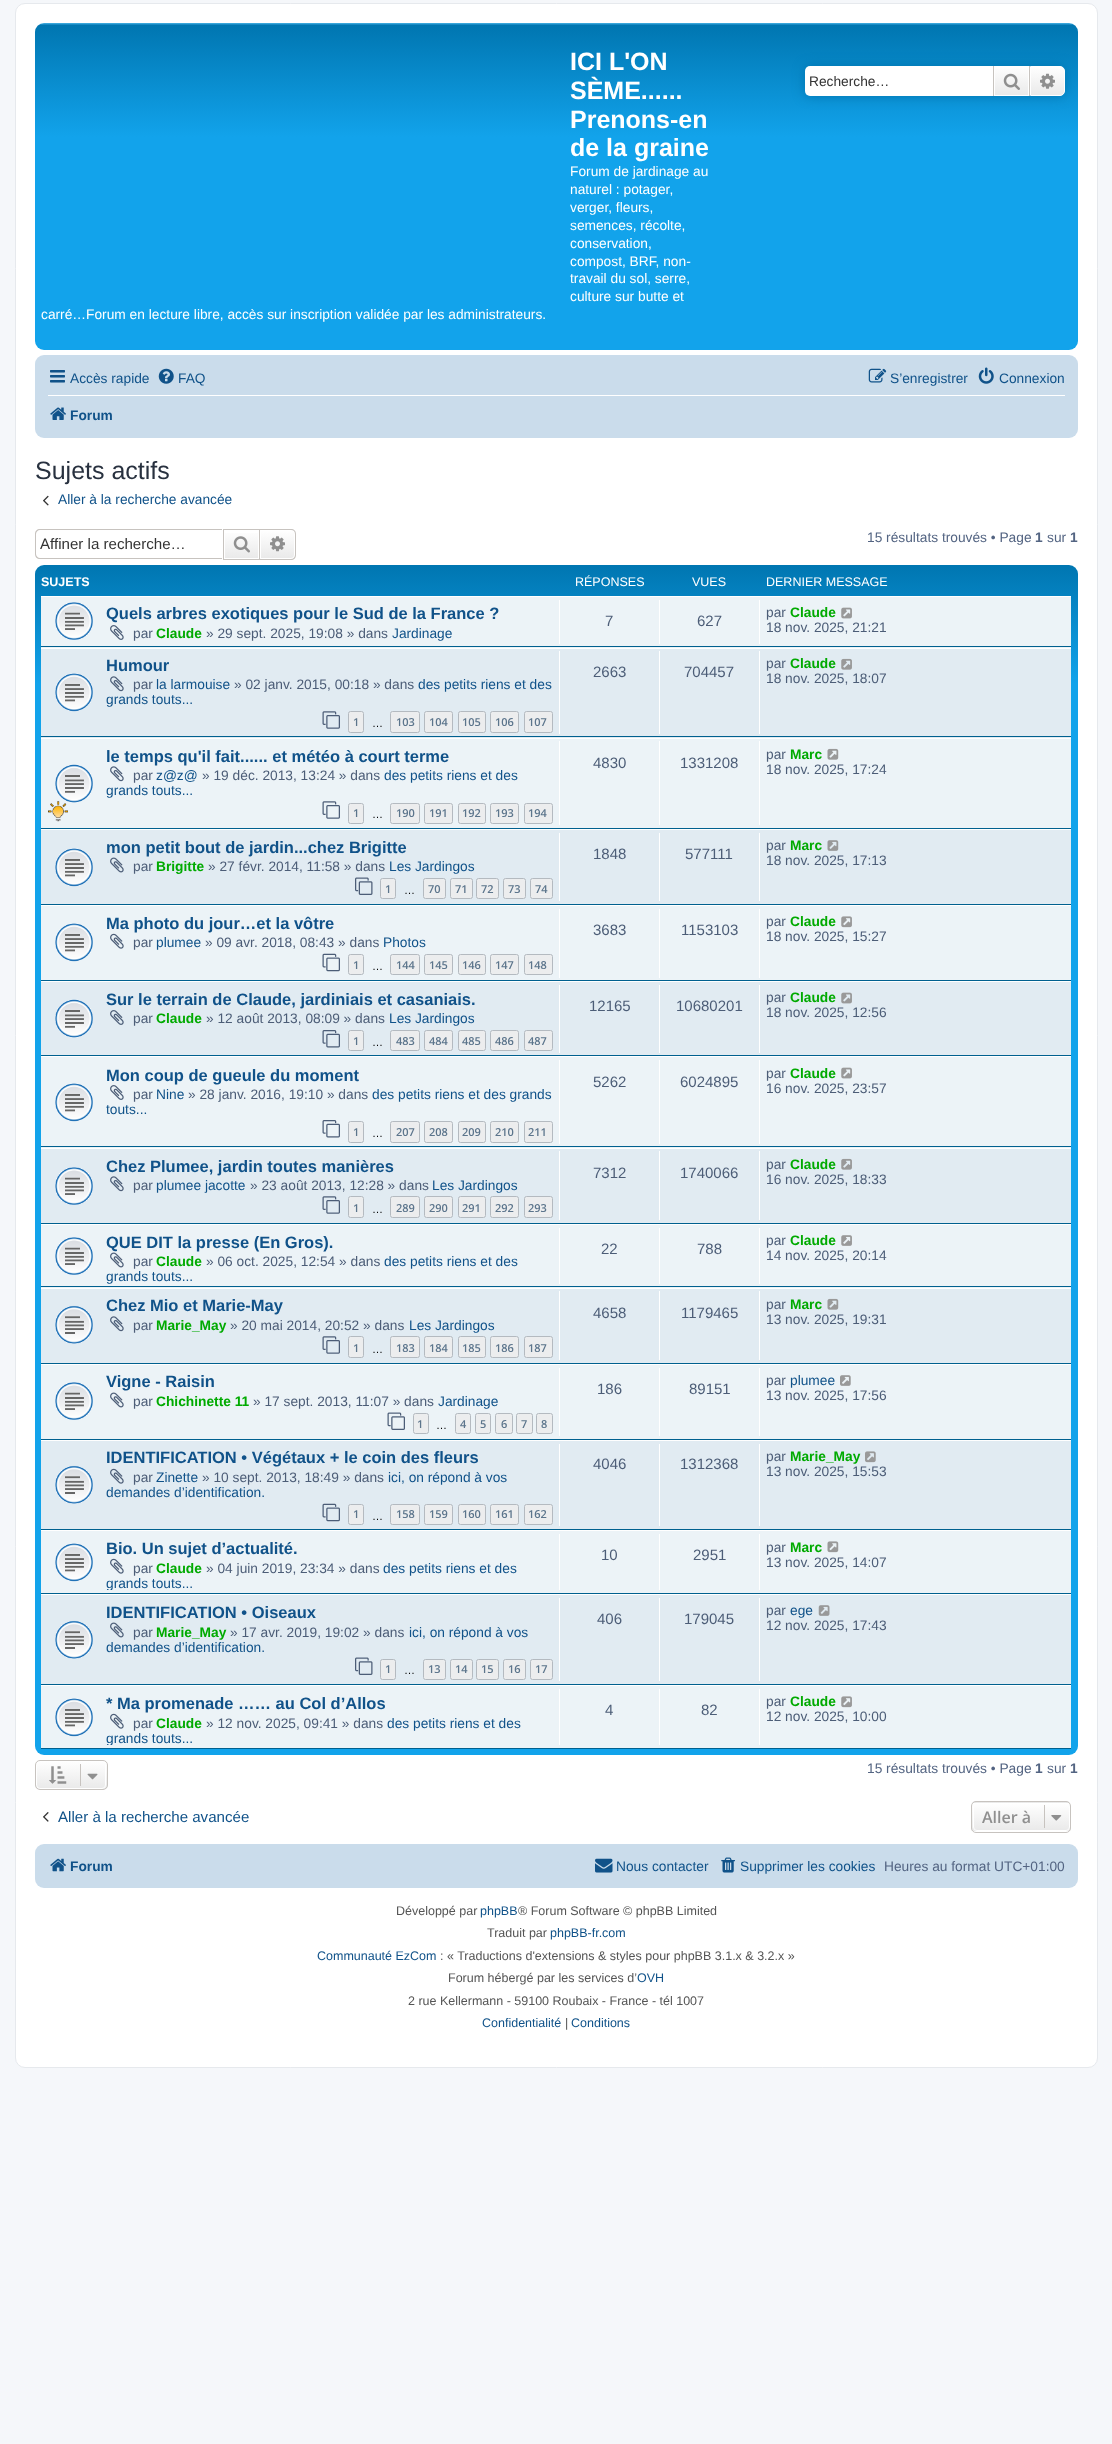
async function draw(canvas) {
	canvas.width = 1112;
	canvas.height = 2444;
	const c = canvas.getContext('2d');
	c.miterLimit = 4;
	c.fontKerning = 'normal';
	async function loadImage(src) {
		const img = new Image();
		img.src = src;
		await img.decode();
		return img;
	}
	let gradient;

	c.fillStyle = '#f5f7fa';
	c.fillRect(0, 0, 1112, 2444);
	c.fillStyle = '#fff';
	c.beginPath();
	c.roundRect(15.5, 3.5, 1082, 2064, 9.5);
	c.fill();
	c.strokeStyle = '#e6e9ed';
	c.stroke();
	gradient = c.createLinearGradient(556, 22, 556, 350);
	gradient.addColorStop(0, '#6aceff');
	gradient.addColorStop(0.01, '#0076b1');
	gradient.addColorStop(0.35, '#12a3eb');
	gradient.addColorStop(1, '#12a3eb');
	c.fillStyle = gradient;
	c.beginPath();
	c.roundRect(35, 23, 1043, 327, 9);
	c.fill();
	c.font = 'bold 25px Liberation Sans';
	c.fillStyle = '#fff';
	for (const [text, x, y] of [
		['ICI L\'ON', 570, 70],
		['SÈME......', 570, 99],
		['Prenons-en', 570, 128],
		['de la graine', 570, 156],
	]) {
		c.fillText(text, x, y);
	}
	c.font = '13.75px Liberation Sans';
	for (const [text, x, y] of [
		['Forum de jardinage au', 570, 176],
		['naturel : potager,', 570, 194],
		['verger, fleurs,', 570, 212],
		['semences, récolte,', 570, 230],
		['conservation,', 570, 248],
		['compost, BRF, non-', 570, 266],
		['travail du sol, serre,', 570, 283],
		['culture sur butte et', 570, 301],
		['carré…Forum en lecture libre, accès sur inscription validée par les administrateurs.', 41, 319],
	]) {
		c.fillText(text, x, y);
	}
	c.fillStyle = '#0075b0';
	c.filter = 'blur(6px)';
	c.beginPath();
	c.roundRect(805, 66, 260, 30, 5);
	c.fill();
	c.filter = 'none';
	c.fillStyle = '#fff';
	c.beginPath();
	c.roundRect(805, 66, 188, 30, [5, 0, 0, 5]);
	c.fill();
	c.fillStyle = '#333';
	c.fillText('Recherche…', 809, 86);
	gradient = c.createLinearGradient(1011, 66, 1011, 96);
	gradient.addColorStop(0, '#fff');
	gradient.addColorStop(1, '#e9e9e9');
	c.fillStyle = gradient;
	c.fillRect(995, 67, 33, 28);
	c.strokeStyle = '#fff';
	c.strokeRect(994.5, 66.5, 34, 29);
	c.fillStyle = '#c7c3bf';
	c.fillRect(1029, 66, 1, 30);
	c.fillRect(993, 66, 1, 30);
	c.drawImage(await loadImage('img1.png'), 1003, 73, 17, 17);
	gradient = c.createLinearGradient(1048, 66, 1048, 96);
	gradient.addColorStop(0, '#fff');
	gradient.addColorStop(1, '#e9e9e9');
	c.fillStyle = gradient;
	c.beginPath();
	c.roundRect(1030.5, 66.5, 34, 29, [0, 4.5, 4.5, 0]);
	c.fill();
	c.stroke();
	c.drawImage(await loadImage('img2.png'), 1040, 73, 15, 16);
	c.fillStyle = '#cadceb';
	c.beginPath();
	c.roundRect(35, 355, 1043, 83, 9);
	c.fill();
	c.drawImage(await loadImage('img3.png'), 50, 370, 15, 13);
	c.fillStyle = '#105289';
	c.fillText('Accès rapide', 70, 383);
	c.drawImage(await loadImage('img4.png'), 158, 368, 16, 16);
	c.fillText('FAQ', 178, 383);
	c.drawImage(await loadImage('img5.png'), 868, 368, 19, 15);
	c.fillText('S’enregistrer', 890, 383);
	c.drawImage(await loadImage('img6.png'), 978, 367, 16, 17);
	c.fillText('Connexion', 999, 383);
	c.fillStyle = '#fff';
	c.fillRect(48, 395, 1017, 1);
	c.drawImage(await loadImage('img7.png'), 50, 407, 16, 13);
	c.font = 'bold 13.75px Liberation Sans';
	c.fillStyle = '#105289';
	c.fillText('Forum', 70, 420);
	c.font = '25px Liberation Sans';
	c.fillStyle = '#28313f';
	c.fillText('Sujets actifs', 35, 479);
	c.drawImage(await loadImage('img8.png'), 43, 495, 6, 11);
	c.font = '13.75px Liberation Sans';
	c.fillStyle = '#105289';
	c.fillText('Aller à la recherche avancée', 58, 504);
	c.fillStyle = '#c7c3bf';
	c.beginPath();
	c.moveTo(40, 529);
	c.lineTo(222, 529);
	c.lineTo(222, 559);
	c.lineTo(40, 559);
	c.bezierCurveTo(37, 559, 35, 557, 35, 554);
	c.lineTo(35, 534);
	c.bezierCurveTo(35, 531, 37, 529, 40, 529);
	c.closePath();
	c.moveTo(40, 530);
	c.lineTo(222, 530);
	c.lineTo(222, 558);
	c.lineTo(40, 558);
	c.bezierCurveTo(38, 558, 36, 556, 36, 554);
	c.lineTo(36, 534);
	c.bezierCurveTo(36, 532, 38, 530, 40, 530);
	c.closePath();
	c.fill('evenodd');
	c.font = '15.1px Liberation Sans';
	c.fillStyle = '#333';
	c.fillText('Affiner la recherche…', 40, 549);
	gradient = c.createLinearGradient(241, 530, 241, 559);
	gradient.addColorStop(0, '#fff');
	gradient.addColorStop(1, '#e9e9e9');
	c.fillStyle = gradient;
	c.fillRect(225, 533, 33, 25);
	c.strokeStyle = '#c7c3bf';
	c.strokeRect(223.5, 529.5, 36, 30);
	c.drawImage(await loadImage('img9.png'), 233, 536, 17, 17);
	gradient = c.createLinearGradient(278, 530, 278, 559);
	gradient.addColorStop(0, '#fff');
	gradient.addColorStop(1, '#e9e9e9');
	c.fillStyle = gradient;
	c.beginPath();
	c.roundRect(260.5, 530.5, 34, 28, [0, 3.5, 3.5, 0]);
	c.fill();
	c.strokeStyle = '#fff';
	c.stroke();
	c.fillStyle = '#c7c3bf';
	c.beginPath();
	c.moveTo(260, 529);
	c.lineTo(291, 529);
	c.bezierCurveTo(294, 529, 296, 531, 296, 534);
	c.lineTo(296, 555);
	c.bezierCurveTo(296, 558, 294, 560, 291, 560);
	c.lineTo(260, 560);
	c.closePath();
	c.moveTo(260, 530);
	c.lineTo(291, 530);
	c.bezierCurveTo(293.5, 530, 295, 531.5, 295, 534);
	c.lineTo(295, 555);
	c.bezierCurveTo(295, 557, 293.5, 559, 291, 559);
	c.lineTo(260, 559);
	c.closePath();
	c.fill('evenodd');
	c.drawImage(await loadImage('img10.png'), 270, 536, 15, 16);
	c.font = '13.75px Liberation Sans';
	c.fillStyle = '#536482';
	c.fillText('15 résultats trouvés • Page', 867, 542);
	c.font = 'bold 13.75px Liberation Sans';
	c.fillText('1', 1035, 542);
	c.font = '13.75px Liberation Sans';
	c.fillText('sur', 1047, 542);
	c.font = 'bold 13.75px Liberation Sans';
	c.fillText('1', 1070, 542);
	gradient = c.createLinearGradient(556, 565, 556, 1755);
	gradient.addColorStop(0, '#6aceff');
	gradient.addColorStop(0, '#0076b1');
	gradient.addColorStop(0.1, '#12a3eb');
	gradient.addColorStop(1, '#12a3eb');
	c.fillStyle = gradient;
	c.beginPath();
	c.roundRect(35, 565, 1043, 1190, 9);
	c.fill();
	c.font = 'bold 12.5px Liberation Sans';
	c.fillStyle = '#fff';
	c.fillText('SUJETS', 41, 586);
	c.font = '12.5px Liberation Sans';
	for (const [text, x, y] of [
		['RÉPONSES', 575, 586],
		['VUES', 692, 586],
		['DERNIER MESSAGE', 766, 586],
	]) {
		c.fillText(text, x, y);
	}
	for (const [x, y, w, h, color] of [
		[41, 597, 1030, 51, '#ecf3f7'],
		[41, 596, 1030, 1, '#fff'],
		[41, 646, 1030, 1, '#00608f'],
	]) {
		c.fillStyle = color;
		c.fillRect(x, y, w, h);
	}
	c.drawImage(await loadImage('img11.png'), 55, 602, 38, 38);
	c.font = 'bold 16.5px Liberation Sans';
	c.fillStyle = '#105289';
	c.fillText('Quels arbres exotiques pour le Sud de la France ?', 106, 619);
	c.drawImage(await loadImage('img12.png'), 110, 625, 14, 15);
	c.font = '13.75px Liberation Sans';
	c.fillStyle = '#4c5d77';
	c.fillText('par', 133, 638);
	c.font = 'bold 13.75px Liberation Sans';
	c.fillStyle = '#0a0';
	c.fillText('Claude', 156, 638);
	c.font = '13.75px Liberation Sans';
	c.fillStyle = '#4c5d77';
	c.fillText('» 29 sept. 2025, 19:08 » dans', 206, 638);
	c.fillStyle = '#105289';
	c.fillText('Jardinage', 392, 638);
	c.fillStyle = '#fff';
	c.fillRect(559, 600, 1, 44);
	c.font = '15px Liberation Sans';
	c.fillStyle = '#4c5d77';
	c.fillText('7', 605, 626);
	c.fillStyle = '#fff';
	c.fillRect(659, 600, 1, 44);
	c.fillStyle = '#4c5d77';
	c.fillText('627', 697, 626);
	c.fillStyle = '#fff';
	c.fillRect(759, 600, 1, 44);
	c.font = '13.75px Liberation Sans';
	c.fillStyle = '#4c5d77';
	c.fillText('par', 766, 617);
	c.font = 'bold 13.75px Liberation Sans';
	c.fillStyle = '#0a0';
	c.fillText('Claude', 790, 617);
	c.drawImage(await loadImage('img13.png'), 841, 607, 11, 12);
	c.font = '13.75px Liberation Sans';
	c.fillStyle = '#4c5d77';
	c.fillText('18 nov. 2025, 21:21', 766, 632);
	for (const [x, y, w, h, color] of [
		[41, 649, 1030, 89, '#e1ebf2'],
		[41, 648, 1030, 1, '#fff'],
		[41, 736, 1030, 1, '#00608f'],
	]) {
		c.fillStyle = color;
		c.fillRect(x, y, w, h);
	}
	c.drawImage(await loadImage('img14.png'), 55, 673, 38, 39);
	c.font = 'bold 16.5px Liberation Sans';
	c.fillStyle = '#105289';
	c.fillText('Humour', 106, 671);
	c.drawImage(await loadImage('img15.png'), 110, 676, 14, 16);
	c.font = '13.75px Liberation Sans';
	c.fillStyle = '#4c5d77';
	c.fillText('par', 133, 689);
	c.fillStyle = '#105289';
	c.fillText('la larmouise', 156, 689);
	c.fillStyle = '#4c5d77';
	c.fillText('» 02 janv. 2015, 00:18 » dans', 234, 689);
	c.fillStyle = '#105289';
	c.fillText('des petits riens et des', 418, 689);
	c.fillText('grands touts...', 106, 704);
	c.drawImage(await loadImage('img16.png'), 322, 711, 18, 18);
	c.fillStyle = '#ecedee';
	c.beginPath();
	c.roundRect(348.5, 711.5, 15, 21, 2);
	c.fill();
	c.strokeStyle = '#b4bac0';
	c.stroke();
	c.font = '600 11px Open Sans';
	c.fillStyle = '#5c758c';
	c.fillText('1', 353, 726);
	c.font = '11px Liberation Sans';
	c.fillStyle = '#000';
	c.fillText('…', 372, 727);
	c.fillStyle = '#ecedee';
	c.beginPath();
	c.roundRect(390.5, 711.5, 29, 21, 2);
	c.fill();
	c.stroke();
	c.font = '600 11px Open Sans';
	c.fillStyle = '#5c758c';
	c.fillText('103', 396, 726);
	c.fillStyle = '#ecedee';
	c.beginPath();
	c.roundRect(424.5, 711.5, 28, 21, 2);
	c.fill();
	c.stroke();
	c.fillStyle = '#5c758c';
	c.fillText('104', 429, 726);
	c.fillStyle = '#ecedee';
	c.beginPath();
	c.roundRect(458.5, 711.5, 27, 21, 2);
	c.fill();
	c.stroke();
	c.fillStyle = '#5c758c';
	c.fillText('105', 462, 726);
	c.fillStyle = '#ecedee';
	c.beginPath();
	c.roundRect(490.5, 711.5, 28, 21, 2);
	c.fill();
	c.stroke();
	c.fillStyle = '#5c758c';
	c.fillText('106', 495, 726);
	c.fillStyle = '#ecedee';
	c.beginPath();
	c.roundRect(524.5, 711.5, 28, 21, 2);
	c.fill();
	c.stroke();
	c.fillStyle = '#5c758c';
	c.fillText('107', 528, 726);
	c.fillStyle = '#fff';
	c.fillRect(559, 651, 1, 83);
	c.font = '15px Liberation Sans';
	c.fillStyle = '#4c5d77';
	c.fillText('2663', 593, 677);
	c.fillStyle = '#fff';
	c.fillRect(659, 651, 1, 83);
	c.fillStyle = '#4c5d77';
	c.fillText('704457', 684, 677);
	c.fillStyle = '#fff';
	c.fillRect(759, 651, 1, 83);
	c.font = '13.75px Liberation Sans';
	c.fillStyle = '#4c5d77';
	c.fillText('par', 766, 668);
	c.font = 'bold 13.75px Liberation Sans';
	c.fillStyle = '#0a0';
	c.fillText('Claude', 790, 668);
	c.drawImage(await loadImage('img17.png'), 841, 658, 11, 12);
	c.font = '13.75px Liberation Sans';
	c.fillStyle = '#4c5d77';
	c.fillText('18 nov. 2025, 18:07', 766, 683);
	for (const [x, y, w, h, color] of [
		[41, 739, 1030, 89, '#ecf3f7'],
		[41, 738, 1030, 1, '#fff'],
		[41, 828, 1030, 1, '#00608f'],
	]) {
		c.fillStyle = color;
		c.fillRect(x, y, w, h);
	}
	c.drawImage(await loadImage('img18.png'), 55, 764, 38, 39);
	c.drawImage(await loadImage('img19.png'), 48, 801, 20, 21);
	c.font = 'bold 16.5px Liberation Sans';
	c.fillStyle = '#105289';
	c.fillText('le temps qu\'il fait...... et météo à court terme', 106, 762);
	c.drawImage(await loadImage('img20.png'), 110, 766, 14, 16);
	c.font = '13.75px Liberation Sans';
	c.fillStyle = '#4c5d77';
	c.fillText('par', 133, 780);
	c.fillStyle = '#105289';
	c.fillText('z@z@', 156, 780);
	c.fillStyle = '#4c5d77';
	c.fillText('» 19 déc. 2013, 13:24 » dans', 202, 780);
	c.fillStyle = '#105289';
	c.fillText('des petits riens et des', 384, 780);
	c.fillText('grands touts...', 106, 795);
	c.drawImage(await loadImage('img21.png'), 322, 801, 18, 18);
	c.fillStyle = '#ecedee';
	c.beginPath();
	c.roundRect(348.5, 803.5, 15, 20, 2);
	c.fill();
	c.stroke();
	c.font = '600 11px Open Sans';
	c.fillStyle = '#5c758c';
	c.fillText('1', 353, 817);
	c.font = '11px Liberation Sans';
	c.fillStyle = '#000';
	c.fillText('…', 372, 818);
	c.fillStyle = '#ecedee';
	c.beginPath();
	c.roundRect(390.5, 803.5, 29, 20, 2);
	c.fill();
	c.stroke();
	c.font = '600 11px Open Sans';
	c.fillStyle = '#5c758c';
	c.fillText('190', 396, 817);
	c.fillStyle = '#ecedee';
	c.beginPath();
	c.roundRect(424.5, 803.5, 28, 20, 2);
	c.fill();
	c.stroke();
	c.fillStyle = '#5c758c';
	c.fillText('191', 429, 817);
	c.fillStyle = '#ecedee';
	c.beginPath();
	c.roundRect(458.5, 803.5, 27, 20, 2);
	c.fill();
	c.stroke();
	c.fillStyle = '#5c758c';
	c.fillText('192', 462, 817);
	c.fillStyle = '#ecedee';
	c.beginPath();
	c.roundRect(490.5, 803.5, 28, 20, 2);
	c.fill();
	c.stroke();
	c.fillStyle = '#5c758c';
	c.fillText('193', 495, 817);
	c.fillStyle = '#ecedee';
	c.beginPath();
	c.roundRect(524.5, 803.5, 28, 20, 2);
	c.fill();
	c.stroke();
	c.fillStyle = '#5c758c';
	c.fillText('194', 528, 817);
	c.fillStyle = '#fff';
	c.fillRect(559, 741, 1, 84);
	c.font = '15px Liberation Sans';
	c.fillStyle = '#4c5d77';
	c.fillText('4830', 593, 768);
	c.fillStyle = '#fff';
	c.fillRect(659, 741, 1, 84);
	c.fillStyle = '#4c5d77';
	c.fillText('1331208', 680, 768);
	c.fillStyle = '#fff';
	c.fillRect(759, 741, 1, 84);
	c.font = '13.75px Liberation Sans';
	c.fillStyle = '#4c5d77';
	c.fillText('par', 766, 759);
	c.font = 'bold 13.75px Liberation Sans';
	c.fillStyle = '#0a0';
	c.fillText('Marc', 790, 759);
	c.drawImage(await loadImage('img22.png'), 827, 748, 12, 12);
	c.font = '13.75px Liberation Sans';
	c.fillStyle = '#4c5d77';
	c.fillText('18 nov. 2025, 17:24', 766, 774);
	for (const [x, y, w, h, color] of [
		[41, 830, 1030, 74, '#e1ebf2'],
		[41, 829, 1030, 1, '#fff'],
		[41, 904, 1030, 1, '#00608f'],
	]) {
		c.fillStyle = color;
		c.fillRect(x, y, w, h);
	}
	c.drawImage(await loadImage('img14.png'), 55, 848, 38, 39);
	c.font = 'bold 16.5px Liberation Sans';
	c.fillStyle = '#105289';
	c.fillText('mon petit bout de jardin...chez Brigitte', 106, 853);
	c.drawImage(await loadImage('img23.png'), 110, 857, 14, 16);
	c.font = '13.75px Liberation Sans';
	c.fillStyle = '#4c5d77';
	c.fillText('par', 133, 871);
	c.font = 'bold 13.75px Liberation Sans';
	c.fillStyle = '#0a0';
	c.fillText('Brigitte', 156, 871);
	c.font = '13.75px Liberation Sans';
	c.fillStyle = '#4c5d77';
	c.fillText('» 27 févr. 2014, 11:58 » dans', 208, 871);
	c.fillStyle = '#105289';
	c.fillText('Les Jardingos', 389, 871);
	c.drawImage(await loadImage('img24.png'), 355, 877, 18, 18);
	c.fillStyle = '#ecedee';
	c.beginPath();
	c.roundRect(380.5, 878.5, 15, 20, 2);
	c.fill();
	c.stroke();
	c.font = '600 11px Open Sans';
	c.fillStyle = '#5c758c';
	c.fillText('1', 385, 893);
	c.font = '11px Liberation Sans';
	c.fillStyle = '#000';
	c.fillText('…', 404, 894);
	c.fillStyle = '#ecedee';
	c.beginPath();
	c.roundRect(423.5, 878.5, 22, 20, 2);
	c.fill();
	c.stroke();
	c.font = '600 11px Open Sans';
	c.fillStyle = '#5c758c';
	c.fillText('70', 428, 893);
	c.fillStyle = '#ecedee';
	c.beginPath();
	c.roundRect(450.5, 878.5, 22, 20, 2);
	c.fill();
	c.stroke();
	c.fillStyle = '#5c758c';
	c.fillText('71', 455, 893);
	c.fillStyle = '#ecedee';
	c.beginPath();
	c.roundRect(476.5, 878.5, 22, 20, 2);
	c.fill();
	c.stroke();
	c.fillStyle = '#5c758c';
	c.fillText('72', 481, 893);
	c.fillStyle = '#ecedee';
	c.beginPath();
	c.roundRect(503.5, 878.5, 22, 20, 2);
	c.fill();
	c.stroke();
	c.fillStyle = '#5c758c';
	c.fillText('73', 508, 893);
	c.fillStyle = '#ecedee';
	c.beginPath();
	c.roundRect(530.5, 878.5, 22, 20, 2);
	c.fill();
	c.stroke();
	c.fillStyle = '#5c758c';
	c.fillText('74', 535, 893);
	c.fillStyle = '#fff';
	c.fillRect(559, 833, 1, 68);
	c.font = '15px Liberation Sans';
	c.fillStyle = '#4c5d77';
	c.fillText('1848', 593, 859);
	c.fillStyle = '#fff';
	c.fillRect(659, 833, 1, 68);
	c.fillStyle = '#4c5d77';
	c.fillText('577111', 685, 859);
	c.fillStyle = '#fff';
	c.fillRect(759, 833, 1, 68);
	c.font = '13.75px Liberation Sans';
	c.fillStyle = '#4c5d77';
	c.fillText('par', 766, 850);
	c.font = 'bold 13.75px Liberation Sans';
	c.fillStyle = '#0a0';
	c.fillText('Marc', 790, 850);
	c.drawImage(await loadImage('img25.png'), 827, 840, 12, 11);
	c.font = '13.75px Liberation Sans';
	c.fillStyle = '#4c5d77';
	c.fillText('18 nov. 2025, 17:13', 766, 865);
	for (const [x, y, w, h, color] of [
		[41, 906, 1030, 74, '#ecf3f7'],
		[41, 905, 1030, 1, '#fff'],
		[41, 980, 1030, 1, '#00608f'],
	]) {
		c.fillStyle = color;
		c.fillRect(x, y, w, h);
	}
	c.drawImage(await loadImage('img26.png'), 55, 923, 38, 39);
	c.font = 'bold 16.5px Liberation Sans';
	c.fillStyle = '#105289';
	c.fillText('Ma photo du jour…et la vôtre', 106, 929);
	c.drawImage(await loadImage('img27.png'), 110, 933, 14, 16);
	c.font = '13.75px Liberation Sans';
	c.fillStyle = '#4c5d77';
	c.fillText('par', 133, 947);
	c.fillStyle = '#105289';
	c.fillText('plumee', 156, 947);
	c.fillStyle = '#4c5d77';
	c.fillText('» 09 avr. 2018, 08:43 » dans', 205, 947);
	c.fillStyle = '#105289';
	c.fillText('Photos', 383, 947);
	c.drawImage(await loadImage('img28.png'), 322, 953, 18, 19);
	c.fillStyle = '#ecedee';
	c.beginPath();
	c.roundRect(348.5, 954.5, 15, 20, 2);
	c.fill();
	c.stroke();
	c.font = '600 11px Open Sans';
	c.fillStyle = '#5c758c';
	c.fillText('1', 353, 969);
	c.font = '11px Liberation Sans';
	c.fillStyle = '#000';
	c.fillText('…', 372, 970);
	c.fillStyle = '#ecedee';
	c.beginPath();
	c.roundRect(390.5, 954.5, 29, 20, 2);
	c.fill();
	c.stroke();
	c.font = '600 11px Open Sans';
	c.fillStyle = '#5c758c';
	c.fillText('144', 396, 969);
	c.fillStyle = '#ecedee';
	c.beginPath();
	c.roundRect(424.5, 954.5, 28, 20, 2);
	c.fill();
	c.stroke();
	c.fillStyle = '#5c758c';
	c.fillText('145', 429, 969);
	c.fillStyle = '#ecedee';
	c.beginPath();
	c.roundRect(458.5, 954.5, 27, 20, 2);
	c.fill();
	c.stroke();
	c.fillStyle = '#5c758c';
	c.fillText('146', 462, 969);
	c.fillStyle = '#ecedee';
	c.beginPath();
	c.roundRect(490.5, 954.5, 28, 20, 2);
	c.fill();
	c.stroke();
	c.fillStyle = '#5c758c';
	c.fillText('147', 495, 969);
	c.fillStyle = '#ecedee';
	c.beginPath();
	c.roundRect(524.5, 954.5, 28, 20, 2);
	c.fill();
	c.stroke();
	c.fillStyle = '#5c758c';
	c.fillText('148', 528, 969);
	c.fillStyle = '#fff';
	c.fillRect(559, 909, 1, 69);
	c.font = '15px Liberation Sans';
	c.fillStyle = '#4c5d77';
	c.fillText('3683', 593, 935);
	c.fillStyle = '#fff';
	c.fillRect(659, 909, 1, 69);
	c.fillStyle = '#4c5d77';
	c.fillText('1153103', 681, 935);
	c.fillStyle = '#fff';
	c.fillRect(759, 909, 1, 69);
	c.font = '13.75px Liberation Sans';
	c.fillStyle = '#4c5d77';
	c.fillText('par', 766, 926);
	c.font = 'bold 13.75px Liberation Sans';
	c.fillStyle = '#0a0';
	c.fillText('Claude', 790, 926);
	c.drawImage(await loadImage('img29.png'), 841, 916, 11, 12);
	c.font = '13.75px Liberation Sans';
	c.fillStyle = '#4c5d77';
	c.fillText('18 nov. 2025, 15:27', 766, 941);
	for (const [x, y, w, h, color] of [
		[41, 982, 1030, 73, '#e1ebf2'],
		[41, 981, 1030, 1, '#fff'],
		[41, 1055, 1030, 1, '#00608f'],
	]) {
		c.fillStyle = color;
		c.fillRect(x, y, w, h);
	}
	c.drawImage(await loadImage('img30.png'), 55, 999, 38, 39);
	c.font = 'bold 16.5px Liberation Sans';
	c.fillStyle = '#105289';
	c.fillText('Sur le terrain de Claude, jardiniais et casaniais.', 106, 1005);
	c.drawImage(await loadImage('img31.png'), 110, 1010, 14, 15);
	c.font = '13.75px Liberation Sans';
	c.fillStyle = '#4c5d77';
	c.fillText('par', 133, 1023);
	c.font = 'bold 13.75px Liberation Sans';
	c.fillStyle = '#0a0';
	c.fillText('Claude', 156, 1023);
	c.font = '13.75px Liberation Sans';
	c.fillStyle = '#4c5d77';
	c.fillText('» 12 août 2013, 08:09 » dans', 206, 1023);
	c.fillStyle = '#105289';
	c.fillText('Les Jardingos', 389, 1023);
	c.drawImage(await loadImage('img32.png'), 322, 1030, 18, 18);
	c.fillStyle = '#ecedee';
	c.beginPath();
	c.roundRect(348.5, 1030.5, 15, 20, 2);
	c.fill();
	c.stroke();
	c.font = '600 11px Open Sans';
	c.fillStyle = '#5c758c';
	c.fillText('1', 353, 1045);
	c.font = '11px Liberation Sans';
	c.fillStyle = '#000';
	c.fillText('…', 372, 1046);
	c.fillStyle = '#ecedee';
	c.beginPath();
	c.roundRect(390.5, 1030.5, 29, 20, 2);
	c.fill();
	c.stroke();
	c.font = '600 11px Open Sans';
	c.fillStyle = '#5c758c';
	c.fillText('483', 396, 1045);
	c.fillStyle = '#ecedee';
	c.beginPath();
	c.roundRect(424.5, 1030.5, 28, 20, 2);
	c.fill();
	c.stroke();
	c.fillStyle = '#5c758c';
	c.fillText('484', 429, 1045);
	c.fillStyle = '#ecedee';
	c.beginPath();
	c.roundRect(458.5, 1030.5, 27, 20, 2);
	c.fill();
	c.stroke();
	c.fillStyle = '#5c758c';
	c.fillText('485', 462, 1045);
	c.fillStyle = '#ecedee';
	c.beginPath();
	c.roundRect(490.5, 1030.5, 28, 20, 2);
	c.fill();
	c.stroke();
	c.fillStyle = '#5c758c';
	c.fillText('486', 495, 1045);
	c.fillStyle = '#ecedee';
	c.beginPath();
	c.roundRect(524.5, 1030.5, 28, 20, 2);
	c.fill();
	c.stroke();
	c.fillStyle = '#5c758c';
	c.fillText('487', 528, 1045);
	c.fillStyle = '#fff';
	c.fillRect(559, 985, 1, 68);
	c.font = '15px Liberation Sans';
	c.fillStyle = '#4c5d77';
	c.fillText('12165', 589, 1011);
	c.fillStyle = '#fff';
	c.fillRect(659, 985, 1, 68);
	c.fillStyle = '#4c5d77';
	c.fillText('10680201', 676, 1011);
	c.fillStyle = '#fff';
	c.fillRect(759, 985, 1, 68);
	c.font = '13.75px Liberation Sans';
	c.fillStyle = '#4c5d77';
	c.fillText('par', 766, 1002);
	c.font = 'bold 13.75px Liberation Sans';
	c.fillStyle = '#0a0';
	c.fillText('Claude', 790, 1002);
	c.drawImage(await loadImage('img33.png'), 841, 992, 11, 12);
	c.font = '13.75px Liberation Sans';
	c.fillStyle = '#4c5d77';
	c.fillText('18 nov. 2025, 12:56', 766, 1017);
	for (const [x, y, w, h, color] of [
		[41, 1057, 1030, 91, '#ecf3f7'],
		[41, 1056, 1030, 1, '#fff'],
		[41, 1146, 1030, 1, '#00608f'],
	]) {
		c.fillStyle = color;
		c.fillRect(x, y, w, h);
	}
	c.drawImage(await loadImage('img26.png'), 55, 1083, 38, 39);
	c.font = 'bold 16.5px Liberation Sans';
	c.fillStyle = '#105289';
	c.fillText('Mon coup de gueule du moment', 106, 1081);
	c.drawImage(await loadImage('img12.png'), 110, 1085, 14, 15);
	c.font = '13.75px Liberation Sans';
	c.fillStyle = '#4c5d77';
	c.fillText('par', 133, 1099);
	c.fillStyle = '#105289';
	c.fillText('Nine', 156, 1099);
	c.fillStyle = '#4c5d77';
	c.fillText('» 28 janv. 2016, 19:10 » dans', 188, 1099);
	c.fillStyle = '#105289';
	c.fillText('des petits riens et des grands', 372, 1099);
	c.fillText('touts...', 106, 1114);
	c.drawImage(await loadImage('img34.png'), 322, 1120, 18, 18);
	c.fillStyle = '#ecedee';
	c.beginPath();
	c.roundRect(348.5, 1121.5, 15, 21, 2);
	c.fill();
	c.stroke();
	c.font = '600 11px Open Sans';
	c.fillStyle = '#5c758c';
	c.fillText('1', 353, 1136);
	c.font = '11px Liberation Sans';
	c.fillStyle = '#000';
	c.fillText('…', 372, 1137);
	c.fillStyle = '#ecedee';
	c.beginPath();
	c.roundRect(390.5, 1121.5, 29, 21, 2);
	c.fill();
	c.stroke();
	c.font = '600 11px Open Sans';
	c.fillStyle = '#5c758c';
	c.fillText('207', 396, 1136);
	c.fillStyle = '#ecedee';
	c.beginPath();
	c.roundRect(424.5, 1121.5, 28, 21, 2);
	c.fill();
	c.stroke();
	c.fillStyle = '#5c758c';
	c.fillText('208', 429, 1136);
	c.fillStyle = '#ecedee';
	c.beginPath();
	c.roundRect(458.5, 1121.5, 27, 21, 2);
	c.fill();
	c.stroke();
	c.fillStyle = '#5c758c';
	c.fillText('209', 462, 1136);
	c.fillStyle = '#ecedee';
	c.beginPath();
	c.roundRect(490.5, 1121.5, 28, 21, 2);
	c.fill();
	c.stroke();
	c.fillStyle = '#5c758c';
	c.fillText('210', 495, 1136);
	c.fillStyle = '#ecedee';
	c.beginPath();
	c.roundRect(524.5, 1121.5, 28, 21, 2);
	c.fill();
	c.stroke();
	c.fillStyle = '#5c758c';
	c.fillText('211', 528, 1136);
	c.fillStyle = '#fff';
	c.fillRect(559, 1060, 1, 84);
	c.font = '15px Liberation Sans';
	c.fillStyle = '#4c5d77';
	c.fillText('5262', 593, 1087);
	c.fillStyle = '#fff';
	c.fillRect(659, 1060, 1, 84);
	c.fillStyle = '#4c5d77';
	c.fillText('6024895', 680, 1087);
	c.fillStyle = '#fff';
	c.fillRect(759, 1060, 1, 84);
	c.font = '13.75px Liberation Sans';
	c.fillStyle = '#4c5d77';
	c.fillText('par', 766, 1078);
	c.font = 'bold 13.75px Liberation Sans';
	c.fillStyle = '#0a0';
	c.fillText('Claude', 790, 1078);
	c.drawImage(await loadImage('img13.png'), 841, 1067, 11, 12);
	c.font = '13.75px Liberation Sans';
	c.fillStyle = '#4c5d77';
	c.fillText('16 nov. 2025, 23:57', 766, 1093);
	for (const [x, y, w, h, color] of [
		[41, 1149, 1030, 74, '#e1ebf2'],
		[41, 1148, 1030, 1, '#fff'],
		[41, 1223, 1030, 1, '#00608f'],
	]) {
		c.fillStyle = color;
		c.fillRect(x, y, w, h);
	}
	c.drawImage(await loadImage('img35.png'), 55, 1167, 38, 38);
	c.font = 'bold 16.5px Liberation Sans';
	c.fillStyle = '#105289';
	c.fillText('Chez Plumee, jardin toutes manières', 106, 1172);
	c.drawImage(await loadImage('img15.png'), 110, 1176, 14, 16);
	c.font = '13.75px Liberation Sans';
	c.fillStyle = '#4c5d77';
	c.fillText('par', 133, 1190);
	c.fillStyle = '#105289';
	c.fillText('plumee jacotte', 156, 1190);
	c.fillStyle = '#4c5d77';
	c.fillText('» 23 août 2013, 12:28 » dans', 250, 1190);
	c.fillStyle = '#105289';
	c.fillText('Les Jardingos', 432, 1190);
	c.drawImage(await loadImage('img16.png'), 322, 1196, 18, 18);
	c.fillStyle = '#ecedee';
	c.beginPath();
	c.roundRect(348.5, 1196.5, 15, 21, 2);
	c.fill();
	c.stroke();
	c.font = '600 11px Open Sans';
	c.fillStyle = '#5c758c';
	c.fillText('1', 353, 1212);
	c.font = '11px Liberation Sans';
	c.fillStyle = '#000';
	c.fillText('…', 372, 1213);
	c.fillStyle = '#ecedee';
	c.beginPath();
	c.roundRect(390.5, 1196.5, 29, 21, 2);
	c.fill();
	c.stroke();
	c.font = '600 11px Open Sans';
	c.fillStyle = '#5c758c';
	c.fillText('289', 396, 1212);
	c.fillStyle = '#ecedee';
	c.beginPath();
	c.roundRect(424.5, 1196.5, 28, 21, 2);
	c.fill();
	c.stroke();
	c.fillStyle = '#5c758c';
	c.fillText('290', 429, 1212);
	c.fillStyle = '#ecedee';
	c.beginPath();
	c.roundRect(458.5, 1196.5, 27, 21, 2);
	c.fill();
	c.stroke();
	c.fillStyle = '#5c758c';
	c.fillText('291', 462, 1212);
	c.fillStyle = '#ecedee';
	c.beginPath();
	c.roundRect(490.5, 1196.5, 28, 21, 2);
	c.fill();
	c.stroke();
	c.fillStyle = '#5c758c';
	c.fillText('292', 495, 1212);
	c.fillStyle = '#ecedee';
	c.beginPath();
	c.roundRect(524.5, 1196.5, 28, 21, 2);
	c.fill();
	c.stroke();
	c.fillStyle = '#5c758c';
	c.fillText('293', 528, 1212);
	c.fillStyle = '#fff';
	c.fillRect(559, 1151, 1, 69);
	c.font = '15px Liberation Sans';
	c.fillStyle = '#4c5d77';
	c.fillText('7312', 593, 1178);
	c.fillStyle = '#fff';
	c.fillRect(659, 1151, 1, 69);
	c.fillStyle = '#4c5d77';
	c.fillText('1740066', 680, 1178);
	c.fillStyle = '#fff';
	c.fillRect(759, 1151, 1, 69);
	c.font = '13.75px Liberation Sans';
	c.fillStyle = '#4c5d77';
	c.fillText('par', 766, 1169);
	c.font = 'bold 13.75px Liberation Sans';
	c.fillStyle = '#0a0';
	c.fillText('Claude', 790, 1169);
	c.drawImage(await loadImage('img17.png'), 841, 1158, 11, 12);
	c.font = '13.75px Liberation Sans';
	c.fillStyle = '#4c5d77';
	c.fillText('16 nov. 2025, 18:33', 766, 1184);
	for (const [x, y, w, h, color] of [
		[41, 1225, 1030, 63, '#ecf3f7'],
		[41, 1224, 1030, 1, '#fff'],
		[41, 1286, 1030, 1, '#00608f'],
	]) {
		c.fillStyle = color;
		c.fillRect(x, y, w, h);
	}
	c.drawImage(await loadImage('img11.png'), 55, 1237, 38, 38);
	c.font = 'bold 16.5px Liberation Sans';
	c.fillStyle = '#105289';
	c.fillText('QUE DIT la presse (En Gros).', 106, 1248);
	c.drawImage(await loadImage('img36.png'), 110, 1252, 14, 16);
	c.font = '13.75px Liberation Sans';
	c.fillStyle = '#4c5d77';
	c.fillText('par', 133, 1266);
	c.font = 'bold 13.75px Liberation Sans';
	c.fillStyle = '#0a0';
	c.fillText('Claude', 156, 1266);
	c.font = '13.75px Liberation Sans';
	c.fillStyle = '#4c5d77';
	c.fillText('» 06 oct. 2025, 12:54 » dans', 206, 1266);
	c.fillStyle = '#105289';
	c.fillText('des petits riens et des', 384, 1266);
	c.fillText('grands touts...', 106, 1281);
	c.fillStyle = '#fff';
	c.fillRect(559, 1228, 1, 56);
	c.font = '15px Liberation Sans';
	c.fillStyle = '#4c5d77';
	c.fillText('22', 601, 1254);
	c.fillStyle = '#fff';
	c.fillRect(659, 1228, 1, 56);
	c.fillStyle = '#4c5d77';
	c.fillText('788', 697, 1254);
	c.fillStyle = '#fff';
	c.fillRect(759, 1228, 1, 56);
	c.font = '13.75px Liberation Sans';
	c.fillStyle = '#4c5d77';
	c.fillText('par', 766, 1245);
	c.font = 'bold 13.75px Liberation Sans';
	c.fillStyle = '#0a0';
	c.fillText('Claude', 790, 1245);
	c.drawImage(await loadImage('img37.png'), 841, 1235, 11, 11);
	c.font = '13.75px Liberation Sans';
	c.fillStyle = '#4c5d77';
	c.fillText('14 nov. 2025, 20:14', 766, 1260);
	for (const [x, y, w, h, color] of [
		[41, 1289, 1030, 74, '#e1ebf2'],
		[41, 1288, 1030, 1, '#fff'],
		[41, 1363, 1030, 1, '#00608f'],
	]) {
		c.fillStyle = color;
		c.fillRect(x, y, w, h);
	}
	c.drawImage(await loadImage('img38.png'), 55, 1305, 38, 39);
	c.font = 'bold 16.5px Liberation Sans';
	c.fillStyle = '#105289';
	c.fillText('Chez Mio et Marie-May', 106, 1311);
	c.drawImage(await loadImage('img15.png'), 110, 1316, 14, 16);
	c.font = '13.75px Liberation Sans';
	c.fillStyle = '#4c5d77';
	c.fillText('par', 133, 1330);
	c.font = 'bold 13.75px Liberation Sans';
	c.fillStyle = '#0a0';
	c.fillText('Marie_May', 156, 1330);
	c.font = '13.75px Liberation Sans';
	c.fillStyle = '#4c5d77';
	c.fillText('» 20 mai 2014, 20:52 » dans', 230, 1330);
	c.fillStyle = '#105289';
	c.fillText('Les Jardingos', 409, 1330);
	c.drawImage(await loadImage('img16.png'), 322, 1336, 18, 18);
	c.fillStyle = '#ecedee';
	c.beginPath();
	c.roundRect(348.5, 1336.5, 15, 21, 2);
	c.fill();
	c.stroke();
	c.font = '600 11px Open Sans';
	c.fillStyle = '#5c758c';
	c.fillText('1', 353, 1352);
	c.font = '11px Liberation Sans';
	c.fillStyle = '#000';
	c.fillText('…', 372, 1353);
	c.fillStyle = '#ecedee';
	c.beginPath();
	c.roundRect(390.5, 1336.5, 29, 21, 2);
	c.fill();
	c.stroke();
	c.font = '600 11px Open Sans';
	c.fillStyle = '#5c758c';
	c.fillText('183', 396, 1352);
	c.fillStyle = '#ecedee';
	c.beginPath();
	c.roundRect(424.5, 1336.5, 28, 21, 2);
	c.fill();
	c.stroke();
	c.fillStyle = '#5c758c';
	c.fillText('184', 429, 1352);
	c.fillStyle = '#ecedee';
	c.beginPath();
	c.roundRect(458.5, 1336.5, 27, 21, 2);
	c.fill();
	c.stroke();
	c.fillStyle = '#5c758c';
	c.fillText('185', 462, 1352);
	c.fillStyle = '#ecedee';
	c.beginPath();
	c.roundRect(490.5, 1336.5, 28, 21, 2);
	c.fill();
	c.stroke();
	c.fillStyle = '#5c758c';
	c.fillText('186', 495, 1352);
	c.fillStyle = '#ecedee';
	c.beginPath();
	c.roundRect(524.5, 1336.5, 28, 21, 2);
	c.fill();
	c.stroke();
	c.fillStyle = '#5c758c';
	c.fillText('187', 528, 1352);
	c.fillStyle = '#fff';
	c.fillRect(559, 1291, 1, 69);
	c.font = '15px Liberation Sans';
	c.fillStyle = '#4c5d77';
	c.fillText('4658', 593, 1318);
	c.fillStyle = '#fff';
	c.fillRect(659, 1291, 1, 69);
	c.fillStyle = '#4c5d77';
	c.fillText('1179465', 681, 1318);
	c.fillStyle = '#fff';
	c.fillRect(759, 1291, 1, 69);
	c.font = '13.75px Liberation Sans';
	c.fillStyle = '#4c5d77';
	c.fillText('par', 766, 1309);
	c.font = 'bold 13.75px Liberation Sans';
	c.fillStyle = '#0a0';
	c.fillText('Marc', 790, 1309);
	c.drawImage(await loadImage('img39.png'), 827, 1298, 12, 12);
	c.font = '13.75px Liberation Sans';
	c.fillStyle = '#4c5d77';
	c.fillText('13 nov. 2025, 19:31', 766, 1324);
	for (const [x, y, w, h, color] of [
		[41, 1365, 1030, 74, '#ecf3f7'],
		[41, 1364, 1030, 1, '#fff'],
		[41, 1439, 1030, 1, '#00608f'],
	]) {
		c.fillStyle = color;
		c.fillRect(x, y, w, h);
	}
	c.drawImage(await loadImage('img11.png'), 55, 1382, 38, 38);
	c.font = 'bold 16.5px Liberation Sans';
	c.fillStyle = '#105289';
	c.fillText('Vigne - Raisin', 106, 1387);
	c.drawImage(await loadImage('img36.png'), 110, 1392, 14, 16);
	c.font = '13.75px Liberation Sans';
	c.fillStyle = '#4c5d77';
	c.fillText('par', 133, 1406);
	c.font = 'bold 13.75px Liberation Sans';
	c.fillStyle = '#0a0';
	c.fillText('Chichinette 11', 156, 1406);
	c.font = '13.75px Liberation Sans';
	c.fillStyle = '#4c5d77';
	c.fillText('» 17 sept. 2013, 11:07 » dans', 253, 1406);
	c.fillStyle = '#105289';
	c.fillText('Jardinage', 438, 1406);
	c.drawImage(await loadImage('img40.png'), 387, 1412, 18, 18);
	c.fillStyle = '#ecedee';
	c.beginPath();
	c.roundRect(413.5, 1413.5, 15, 20, 2);
	c.fill();
	c.stroke();
	c.font = '600 11px Open Sans';
	c.fillStyle = '#5c758c';
	c.fillText('1', 417, 1428);
	c.font = '11px Liberation Sans';
	c.fillStyle = '#000';
	c.fillText('…', 436, 1429);
	c.fillStyle = '#ecedee';
	c.beginPath();
	c.roundRect(455.5, 1413.5, 15, 20, 2);
	c.fill();
	c.stroke();
	c.font = '600 11px Open Sans';
	c.fillStyle = '#5c758c';
	c.fillText('4', 460, 1428);
	c.fillStyle = '#ecedee';
	c.beginPath();
	c.roundRect(475.5, 1413.5, 15, 20, 2);
	c.fill();
	c.stroke();
	c.fillStyle = '#5c758c';
	c.fillText('5', 480, 1428);
	c.fillStyle = '#ecedee';
	c.beginPath();
	c.roundRect(495.5, 1413.5, 17, 20, 2);
	c.fill();
	c.stroke();
	c.fillStyle = '#5c758c';
	c.fillText('6', 501, 1428);
	c.fillStyle = '#ecedee';
	c.beginPath();
	c.roundRect(516.5, 1413.5, 16, 20, 2);
	c.fill();
	c.stroke();
	c.fillStyle = '#5c758c';
	c.fillText('7', 521, 1428);
	c.fillStyle = '#ecedee';
	c.beginPath();
	c.roundRect(536.5, 1413.5, 16, 20, 2);
	c.fill();
	c.stroke();
	c.fillStyle = '#5c758c';
	c.fillText('8', 541, 1428);
	c.fillStyle = '#fff';
	c.fillRect(559, 1368, 1, 68);
	c.font = '15px Liberation Sans';
	c.fillStyle = '#4c5d77';
	c.fillText('186', 597, 1394);
	c.fillStyle = '#fff';
	c.fillRect(659, 1368, 1, 68);
	c.fillStyle = '#4c5d77';
	c.fillText('89151', 689, 1394);
	c.fillStyle = '#fff';
	c.fillRect(759, 1368, 1, 68);
	c.font = '13.75px Liberation Sans';
	c.fillStyle = '#4c5d77';
	c.fillText('par', 766, 1385);
	c.fillStyle = '#105289';
	c.fillText('plumee', 790, 1385);
	c.drawImage(await loadImage('img41.png'), 840, 1375, 11, 11);
	c.fillStyle = '#4c5d77';
	c.fillText('13 nov. 2025, 17:56', 766, 1400);
	for (const [x, y, w, h, color] of [
		[41, 1441, 1030, 88, '#e1ebf2'],
		[41, 1440, 1030, 1, '#fff'],
		[41, 1529, 1030, 1, '#00608f'],
	]) {
		c.fillStyle = color;
		c.fillRect(x, y, w, h);
	}
	c.drawImage(await loadImage('img38.png'), 55, 1465, 38, 39);
	c.font = 'bold 16.5px Liberation Sans';
	c.fillStyle = '#105289';
	c.fillText('IDENTIFICATION • Végétaux + le coin des fleurs', 106, 1463);
	c.drawImage(await loadImage('img42.png'), 110, 1468, 14, 16);
	c.font = '13.75px Liberation Sans';
	c.fillStyle = '#4c5d77';
	c.fillText('par', 133, 1482);
	c.fillStyle = '#105289';
	c.fillText('Zinette', 156, 1482);
	c.fillStyle = '#4c5d77';
	c.fillText('» 10 sept. 2013, 18:49 » dans', 202, 1482);
	c.fillStyle = '#105289';
	c.fillText('ici, on répond à vos', 388, 1482);
	c.fillText('demandes d’identification.', 106, 1497);
	c.drawImage(await loadImage('img43.png'), 322, 1503, 18, 19);
	c.fillStyle = '#ecedee';
	c.beginPath();
	c.roundRect(348.5, 1504.5, 15, 20, 2);
	c.fill();
	c.stroke();
	c.font = '600 11px Open Sans';
	c.fillStyle = '#5c758c';
	c.fillText('1', 353, 1518);
	c.fillStyle = '#ecedee';
	c.beginPath();
	c.roundRect(390.5, 1504.5, 29, 20, 2);
	c.fill();
	c.stroke();
	c.fillStyle = '#5c758c';
	c.fillText('158', 396, 1518);
	c.fillStyle = '#ecedee';
	c.beginPath();
	c.roundRect(424.5, 1504.5, 28, 20, 2);
	c.fill();
	c.stroke();
	c.fillStyle = '#5c758c';
	c.fillText('159', 429, 1518);
	c.fillStyle = '#ecedee';
	c.beginPath();
	c.roundRect(458.5, 1504.5, 27, 20, 2);
	c.fill();
	c.stroke();
	c.fillStyle = '#5c758c';
	c.fillText('160', 462, 1518);
	c.fillStyle = '#ecedee';
	c.beginPath();
	c.roundRect(490.5, 1504.5, 28, 20, 2);
	c.fill();
	c.stroke();
	c.fillStyle = '#5c758c';
	c.fillText('161', 495, 1518);
	c.fillStyle = '#ecedee';
	c.beginPath();
	c.roundRect(524.5, 1504.5, 28, 20, 2);
	c.fill();
	c.stroke();
	c.fillStyle = '#5c758c';
	c.fillText('162', 528, 1518);
	c.font = '11px Liberation Sans';
	c.fillStyle = '#000';
	c.fillText('…', 372, 1520);
	c.fillStyle = '#fff';
	c.fillRect(559, 1444, 1, 82);
	c.font = '15px Liberation Sans';
	c.fillStyle = '#4c5d77';
	c.fillText('4046', 593, 1469);
	c.fillStyle = '#fff';
	c.fillRect(659, 1444, 1, 82);
	c.fillStyle = '#4c5d77';
	c.fillText('1312368', 680, 1469);
	c.fillStyle = '#fff';
	c.fillRect(759, 1444, 1, 82);
	c.font = '13.75px Liberation Sans';
	c.fillStyle = '#4c5d77';
	c.fillText('par', 766, 1461);
	c.font = 'bold 13.75px Liberation Sans';
	c.fillStyle = '#0a0';
	c.fillText('Marie_May', 790, 1461);
	c.drawImage(await loadImage('img44.png'), 865, 1451, 11, 12);
	c.font = '13.75px Liberation Sans';
	c.fillStyle = '#4c5d77';
	c.fillText('13 nov. 2025, 15:53', 766, 1476);
	for (const [x, y, w, h, color] of [
		[41, 1531, 1030, 62, '#ecf3f7'],
		[41, 1530, 1030, 1, '#fff'],
		[41, 1593, 1030, 1, '#00608f'],
	]) {
		c.fillStyle = color;
		c.fillRect(x, y, w, h);
	}
	c.drawImage(await loadImage('img45.png'), 55, 1543, 38, 39);
	c.font = 'bold 16.5px Liberation Sans';
	c.fillStyle = '#105289';
	c.fillText('Bio. Un sujet d’actualité.', 106, 1554);
	c.drawImage(await loadImage('img27.png'), 110, 1558, 14, 16);
	c.font = '13.75px Liberation Sans';
	c.fillStyle = '#4c5d77';
	c.fillText('par', 133, 1573);
	c.font = 'bold 13.75px Liberation Sans';
	c.fillStyle = '#0a0';
	c.fillText('Claude', 156, 1573);
	c.font = '13.75px Liberation Sans';
	c.fillStyle = '#4c5d77';
	c.fillText('» 04 juin 2019, 23:34 » dans', 206, 1573);
	c.fillStyle = '#105289';
	c.fillText('des petits riens et des', 383, 1573);
	c.save();
	c.beginPath();
	c.rect(41, 1534, 1030, 56);
	c.clip();
	c.fillText('grands touts...', 106, 1588);
	c.restore();
	c.fillStyle = '#fff';
	c.fillRect(559, 1534, 1, 56);
	c.font = '15px Liberation Sans';
	c.fillStyle = '#4c5d77';
	c.fillText('10', 601, 1560);
	c.fillStyle = '#fff';
	c.fillRect(659, 1534, 1, 56);
	c.fillStyle = '#4c5d77';
	c.fillText('2951', 693, 1560);
	c.fillStyle = '#fff';
	c.fillRect(759, 1534, 1, 56);
	c.font = '13.75px Liberation Sans';
	c.fillStyle = '#4c5d77';
	c.fillText('par', 766, 1552);
	c.font = 'bold 13.75px Liberation Sans';
	c.fillStyle = '#0a0';
	c.fillText('Marc', 790, 1552);
	c.drawImage(await loadImage('img46.png'), 827, 1541, 12, 12);
	c.font = '13.75px Liberation Sans';
	c.fillStyle = '#4c5d77';
	c.fillText('13 nov. 2025, 14:07', 766, 1567);
	for (const [x, y, w, h, color] of [
		[41, 1595, 1030, 89, '#e1ebf2'],
		[41, 1594, 1030, 1, '#fff'],
		[41, 1684, 1030, 1, '#00608f'],
	]) {
		c.fillStyle = color;
		c.fillRect(x, y, w, h);
	}
	c.drawImage(await loadImage('img38.png'), 55, 1620, 38, 39);
	c.font = 'bold 16.5px Liberation Sans';
	c.fillStyle = '#105289';
	c.fillText('IDENTIFICATION • Oiseaux', 106, 1618);
	c.drawImage(await loadImage('img23.png'), 110, 1622, 14, 16);
	c.font = '13.75px Liberation Sans';
	c.fillStyle = '#4c5d77';
	c.fillText('par', 133, 1637);
	c.font = 'bold 13.75px Liberation Sans';
	c.fillStyle = '#0a0';
	c.fillText('Marie_May', 156, 1637);
	c.font = '13.75px Liberation Sans';
	c.fillStyle = '#4c5d77';
	c.fillText('» 17 avr. 2019, 19:02 » dans', 230, 1637);
	c.fillStyle = '#105289';
	c.fillText('ici, on répond à vos', 409, 1637);
	c.fillText('demandes d’identification.', 106, 1652);
	c.drawImage(await loadImage('img24.png'), 355, 1657, 18, 18);
	c.fillStyle = '#ecedee';
	c.beginPath();
	c.roundRect(380.5, 1659.5, 15, 20, 2);
	c.fill();
	c.stroke();
	c.font = '600 11px Open Sans';
	c.fillStyle = '#5c758c';
	c.fillText('1', 385, 1673);
	c.font = '11px Liberation Sans';
	c.fillStyle = '#000';
	c.fillText('…', 404, 1674);
	c.fillStyle = '#ecedee';
	c.beginPath();
	c.roundRect(423.5, 1659.5, 22, 20, 2);
	c.fill();
	c.stroke();
	c.font = '600 11px Open Sans';
	c.fillStyle = '#5c758c';
	c.fillText('13', 428, 1673);
	c.fillStyle = '#ecedee';
	c.beginPath();
	c.roundRect(450.5, 1659.5, 22, 20, 2);
	c.fill();
	c.stroke();
	c.fillStyle = '#5c758c';
	c.fillText('14', 455, 1673);
	c.fillStyle = '#ecedee';
	c.beginPath();
	c.roundRect(476.5, 1659.5, 22, 20, 2);
	c.fill();
	c.stroke();
	c.fillStyle = '#5c758c';
	c.fillText('15', 481, 1673);
	c.fillStyle = '#ecedee';
	c.beginPath();
	c.roundRect(503.5, 1659.5, 22, 20, 2);
	c.fill();
	c.stroke();
	c.fillStyle = '#5c758c';
	c.fillText('16', 508, 1673);
	c.fillStyle = '#ecedee';
	c.beginPath();
	c.roundRect(530.5, 1659.5, 22, 20, 2);
	c.fill();
	c.stroke();
	c.fillStyle = '#5c758c';
	c.fillText('17', 535, 1673);
	c.fillStyle = '#fff';
	c.fillRect(559, 1598, 1, 83);
	c.font = '15px Liberation Sans';
	c.fillStyle = '#4c5d77';
	c.fillText('406', 597, 1624);
	c.fillStyle = '#fff';
	c.fillRect(659, 1598, 1, 83);
	c.fillStyle = '#4c5d77';
	c.fillText('179045', 684, 1624);
	c.fillStyle = '#fff';
	c.fillRect(759, 1598, 1, 83);
	c.font = '13.75px Liberation Sans';
	c.fillStyle = '#4c5d77';
	c.fillText('par', 766, 1615);
	c.fillStyle = '#105289';
	c.fillText('ege', 790, 1615);
	c.drawImage(await loadImage('img47.png'), 818, 1605, 12, 11);
	c.fillStyle = '#4c5d77';
	c.fillText('12 nov. 2025, 17:43', 766, 1630);
	for (const [x, y, w, h, color] of [
		[41, 1686, 1030, 62, '#ecf3f7'],
		[41, 1685, 1030, 1, '#fff'],
		[41, 1748, 1030, 1, '#00608f'],
	]) {
		c.fillStyle = color;
		c.fillRect(x, y, w, h);
	}
	c.drawImage(await loadImage('img26.png'), 55, 1698, 38, 39);
	c.font = 'bold 16.5px Liberation Sans';
	c.fillStyle = '#105289';
	c.fillText('* Ma promenade …… au Col d’Allos', 106, 1709);
	c.drawImage(await loadImage('img27.png'), 110, 1713, 14, 16);
	c.font = '13.75px Liberation Sans';
	c.fillStyle = '#4c5d77';
	c.fillText('par', 133, 1728);
	c.font = 'bold 13.75px Liberation Sans';
	c.fillStyle = '#0a0';
	c.fillText('Claude', 156, 1728);
	c.font = '13.75px Liberation Sans';
	c.fillStyle = '#4c5d77';
	c.fillText('» 12 nov. 2025, 09:41 » dans', 206, 1728);
	c.fillStyle = '#105289';
	c.fillText('des petits riens et des', 387, 1728);
	c.save();
	c.beginPath();
	c.rect(41, 1689, 1030, 56);
	c.clip();
	c.fillText('grands touts...', 106, 1743);
	c.restore();
	c.fillStyle = '#fff';
	c.fillRect(559, 1689, 1, 56);
	c.font = '15px Liberation Sans';
	c.fillStyle = '#4c5d77';
	c.fillText('4', 605, 1715);
	c.fillStyle = '#fff';
	c.fillRect(659, 1689, 1, 56);
	c.fillStyle = '#4c5d77';
	c.fillText('82', 701, 1715);
	c.fillStyle = '#fff';
	c.fillRect(759, 1689, 1, 56);
	c.font = '13.75px Liberation Sans';
	c.fillStyle = '#4c5d77';
	c.fillText('par', 766, 1706);
	c.font = 'bold 13.75px Liberation Sans';
	c.fillStyle = '#0a0';
	c.fillText('Claude', 790, 1706);
	c.drawImage(await loadImage('img29.png'), 841, 1696, 11, 12);
	c.font = '13.75px Liberation Sans';
	c.fillStyle = '#4c5d77';
	c.fillText('12 nov. 2025, 10:00', 766, 1721);
	c.save();
	c.beginPath();
	c.roundRect(35, 1760, 73, 30, 5);
	c.clip();
	gradient = c.createLinearGradient(71, 1761, 71, 1789);
	gradient.addColorStop(0, '#fff');
	gradient.addColorStop(1, '#e9e9e9');
	c.fillStyle = gradient;
	c.fillRect(35, 1761, 73, 28);
	c.restore();
	c.beginPath();
	c.roundRect(36.5, 1761.5, 69, 27, 3.5);
	c.strokeStyle = '#fff';
	c.stroke();
	c.beginPath();
	c.roundRect(35.5, 1760.5, 72, 29, 4.5);
	c.strokeStyle = '#c7c3bf';
	c.stroke();
	c.drawImage(await loadImage('img48.png'), 49, 1766, 18, 18);
	c.fillStyle = '#c7c3bf';
	c.fillRect(80, 1764, 1, 22);
	c.drawImage(await loadImage('img49.png'), 87, 1773, 11, 7);
	c.fillStyle = '#536482';
	c.fillText('15 résultats trouvés • Page', 867, 1773);
	c.font = 'bold 13.75px Liberation Sans';
	c.fillText('1', 1035, 1773);
	c.font = '13.75px Liberation Sans';
	c.fillText('sur', 1047, 1773);
	c.font = 'bold 13.75px Liberation Sans';
	c.fillText('1', 1070, 1773);
	c.drawImage(await loadImage('img50.png'), 43, 1812, 6, 10);
	c.font = '15.1px Liberation Sans';
	c.fillStyle = '#105289';
	c.fillText('Aller à la recherche avancée', 58, 1822);
	c.save();
	c.beginPath();
	c.roundRect(971, 1801, 100, 32, 5);
	c.clip();
	gradient = c.createLinearGradient(1021, 1774, 1021, 1803);
	gradient.addColorStop(0, '#fff');
	gradient.addColorStop(1, '#e9e9e9');
	c.fillStyle = gradient;
	c.fillRect(971, 1801, 100, 2);
	gradient = c.createLinearGradient(1021, 1803, 1021, 1831);
	gradient.addColorStop(0, '#fff');
	gradient.addColorStop(1, '#e9e9e9');
	c.fillStyle = gradient;
	c.fillRect(971, 1803, 100, 28);
	c.restore();
	c.beginPath();
	c.roundRect(973.5, 1803.5, 96, 27, 3.5);
	c.strokeStyle = '#fff';
	c.stroke();
	c.beginPath();
	c.roundRect(971.5, 1801.5, 99, 31, 4.5);
	c.strokeStyle = '#c7c3bf';
	c.stroke();
	c.font = '600 16px Open Sans';
	c.fillStyle = '#8f8f8f';
	c.fillText('Aller à', 982, 1823);
	c.fillStyle = '#c7c3bf';
	c.fillRect(1044, 1805, 1, 23);
	c.drawImage(await loadImage('img51.png'), 1051, 1815, 11, 6);
	c.fillStyle = '#cadceb';
	c.beginPath();
	c.roundRect(35, 1844, 1043, 44, 9);
	c.fill();
	c.drawImage(await loadImage('img52.png'), 50, 1858, 16, 14);
	c.font = 'bold 13.75px Liberation Sans';
	c.fillStyle = '#105289';
	c.fillText('Forum', 70, 1871);
	c.drawImage(await loadImage('img53.png'), 595, 1858, 18, 15);
	c.font = '13.75px Liberation Sans';
	c.fillText('Nous contacter', 616, 1871);
	c.drawImage(await loadImage('img54.png'), 721, 1857, 14, 16);
	c.fillText('Supprimer les cookies', 740, 1871);
	c.fillStyle = '#536482';
	c.fillText('Heures au format UTC+01:00', 884, 1871);
	c.font = '12.5px Liberation Sans';
	c.fillStyle = '#555';
	c.fillText('Développé par', 396, 1915);
	c.fillStyle = '#105289';
	c.fillText('phpBB', 480, 1915);
	c.fillStyle = '#555';
	c.fillText('® Forum Software © phpBB Limited', 518, 1915);
	c.fillText('Traduit par', 487, 1937);
	c.fillStyle = '#105289';
	c.fillText('phpBB-fr.com', 550, 1937);
	c.fillText('Communauté EzCom', 317, 1960);
	c.fillStyle = '#555';
	c.fillText(': « Traductions d\'extensions & styles pour phpBB 3.1.x & 3.2.x »', 440, 1960);
	c.fillText('Forum hébergé par les services d’', 448, 1982);
	c.fillStyle = '#105289';
	c.fillText('OVH', 637, 1982);
	c.fillStyle = '#555';
	c.fillText('2 rue Kellermann - 59100 Roubaix - France - tél 1007', 408, 2005);
	c.fillStyle = '#105289';
	c.fillText('Confidentialité', 482, 2027);
	c.fillStyle = '#555';
	c.fillText('|', 565, 2027);
	c.fillStyle = '#105289';
	c.fillText('Conditions', 571, 2027);
}

draw(document.querySelector('canvas'));
